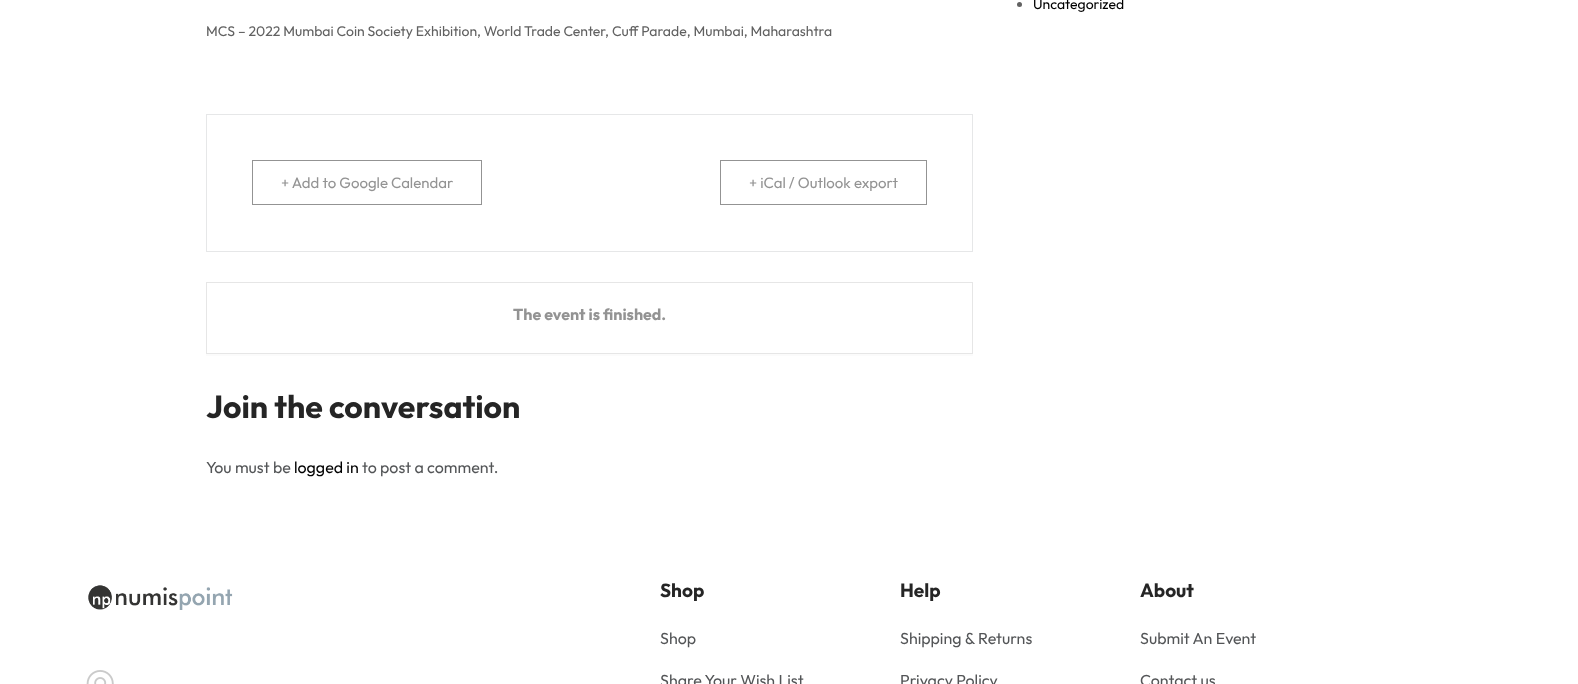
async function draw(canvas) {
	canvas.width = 1578;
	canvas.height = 684;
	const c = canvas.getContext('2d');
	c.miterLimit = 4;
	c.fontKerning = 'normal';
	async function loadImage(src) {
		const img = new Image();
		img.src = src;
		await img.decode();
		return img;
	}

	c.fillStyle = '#fff';
	c.fillRect(0, 0, 1578, 684);
	c.fillStyle = '#626262';
	c.beginPath();
	c.arc(1019.5, 4.5, 2.5, 0, 2 * Math.PI);
	c.fill();
	c.font = '100 14px "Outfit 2"';
	c.fillStyle = '#000';
	c.fillText('Uncategorized', 1033, 9);
	c.fillStyle = '#616161';
	c.fillText('MCS – 2022 Mumbai Coin Society Exhibition, World Trade Center, Cuff Parade, Mumbai, Maharashtra', 206, 36);
	c.strokeStyle = '#e6e7e8';
	c.strokeRect(206.5, 114.5, 766, 137);
	c.strokeStyle = '#939393';
	c.strokeRect(252.5, 160.5, 229, 44);
	c.font = '100 15px "Outfit 2"';
	c.fillStyle = '#939393';
	c.fillText('+ Add to Google Calendar', 281, 188);
	c.strokeRect(720.5, 160.5, 206, 44);
	c.fillText('+ iCal / Outlook export', 749, 188);
	c.fillStyle = '#fbfbfb';
	c.fillRect(206, 354, 767, 2);
	c.strokeStyle = '#e6e6e6';
	c.strokeRect(206.5, 282.5, 766, 71);
	c.font = '100 16px Outfit';
	c.fillStyle = '#939393';
	c.fillText('The event is finished.', 513, 320);
	c.font = '100 32px Outfit';
	c.fillStyle = '#252525';
	c.fillText('Join the conversation', 206, 418);
	c.font = '100 16px "Outfit 2"';
	c.fillStyle = '#535557';
	c.fillText('You must be', 206, 473);
	c.fillStyle = '#000';
	c.fillText('logged in', 294, 473);
	c.fillStyle = '#535557';
	c.fillText('to post a comment.', 362, 473);
	c.drawImage(await loadImage('img1.png'), 88, 585, 145, 25);
	c.drawImage(await loadImage('img2.png'), 86, 670, 28, 14);
	c.font = '100 19px Outfit';
	c.fillStyle = '#252525';
	c.fillText('Shop', 660, 597);
	c.font = '100 16px "Outfit 2"';
	c.fillStyle = '#535557';
	c.fillText('Shop', 660, 644);
	c.fillText('Share Your Wish List', 660, 686);
	c.font = '100 19px Outfit';
	c.fillStyle = '#252525';
	c.fillText('Help', 900, 597);
	c.font = '100 16px "Outfit 2"';
	c.fillStyle = '#535557';
	c.fillText('Shipping & Returns', 900, 644);
	c.fillText('Privacy Policy', 900, 686);
	c.font = '100 19px Outfit';
	c.fillStyle = '#252525';
	c.fillText('About', 1140, 597);
	c.font = '100 16px "Outfit 2"';
	c.fillStyle = '#535557';
	c.fillText('Submit An Event', 1140, 644);
	c.fillText('Contact us', 1140, 686);
}

draw(document.querySelector('canvas'));
